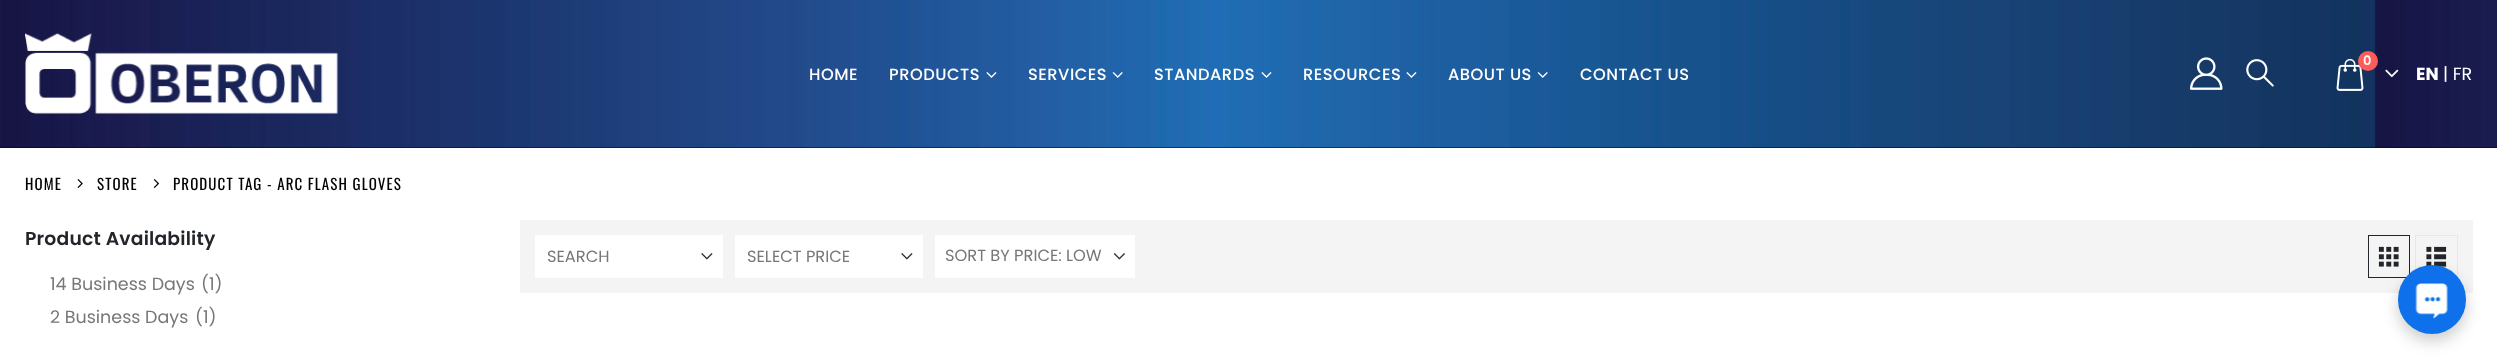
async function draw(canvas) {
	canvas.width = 2497;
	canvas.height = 364;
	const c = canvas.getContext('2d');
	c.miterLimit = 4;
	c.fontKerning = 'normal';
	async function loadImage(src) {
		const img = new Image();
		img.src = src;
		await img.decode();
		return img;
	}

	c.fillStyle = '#fff';
	c.fillRect(0, 0, 2497, 364);
	c.fillStyle = '#000';
	c.fillRect(0, 147, 2497, 1);
	c.drawImage(await loadImage('img1.png'), 0, 0, 2497, 148);
	c.drawImage(await loadImage('img2.png'), 25, 33, 313, 81);
	c.letterSpacing = '0.5px';
	c.font = '500 16.25px Poppins';
	c.fillStyle = '#fff';
	c.fillText('HOME', 809, 80);
	c.fillText('PRODUCTS', 889, 80);
	c.drawImage(await loadImage('img3.png'), 986, 72, 11, 6);
	c.fillText('SERVICES', 1028, 80);
	c.drawImage(await loadImage('img4.png'), 1112, 72, 11, 6);
	c.fillText('STANDARDS', 1154, 80);
	c.drawImage(await loadImage('img5.png'), 1261, 72, 11, 6);
	c.fillText('RESOURCES', 1303, 80);
	c.drawImage(await loadImage('img6.png'), 1406, 72, 11, 6);
	c.fillText('ABOUT US', 1448, 80);
	c.drawImage(await loadImage('img7.png'), 1537, 72, 11, 6);
	c.fillText('CONTACT US', 1580, 80);
	c.drawImage(await loadImage('img8.png'), 2190, 57, 33, 33);
	c.drawImage(await loadImage('img9.png'), 2246, 59, 28, 28);
	c.drawImage(await loadImage('img10.png'), 2336, 58, 28, 33);
	c.fillStyle = '#ff5b5b';
	c.beginPath();
	c.arc(2368, 61, 10, 0, 2 * Math.PI);
	c.fill();
	c.letterSpacing = '0px';
	c.font = '600 13px Poppins';
	c.fillStyle = '#fff';
	c.fillText('0', 2363, 65);
	c.drawImage(await loadImage('img11.png'), 2385, 69, 14, 9);
	c.font = 'bold 17.5px Poppins';
	c.fillText('EN', 2416, 80);
	c.font = '17.5px Poppins';
	c.fillText('| FR', 2443, 80);
	c.letterSpacing = '1.1px';
	c.font = '15px Oswald';
	c.fillStyle = '#000';
	c.fillText('HOME', 25, 190);
	c.drawImage(await loadImage('img12.png'), 77, 179, 6, 9);
	c.fillText('STORE', 97, 190);
	c.drawImage(await loadImage('img13.png'), 153, 179, 6, 9);
	c.fillText('PRODUCT TAG - ARC FLASH GLOVES', 173, 190);
	c.letterSpacing = '0.2px';
	c.font = '600 18.75px Poppins';
	c.fillStyle = '#222529';
	c.fillText('Product Availability', 25, 245);
	c.letterSpacing = '0px';
	c.font = '17.5px Poppins';
	c.fillStyle = '#777';
	for (const [text, x, y] of [
		['14 Business Days', 50, 290],
		['(1)', 201, 290],
		['2 Business Days', 50, 323],
		['(1)', 195, 323],
	]) {
		c.fillText(text, x, y);
	}
	c.fillStyle = '#f4f4f4';
	c.fillRect(520, 220, 1953, 73);
	c.fillStyle = '#fff';
	c.fillRect(535, 235, 188, 43);
	c.drawImage(await loadImage('img14.png'), 701, 253, 12, 7);
	c.font = '16.25px Poppins';
	c.fillStyle = '#777';
	c.fillText('SEARCH', 547, 262);
	c.fillStyle = '#fff';
	c.fillRect(735, 235, 188, 43);
	c.drawImage(await loadImage('img14.png'), 901, 253, 12, 7);
	c.fillStyle = '#777';
	c.fillText('SELECT PRICE', 747, 262);
	c.fillStyle = '#fff';
	c.fillRect(935, 235, 200, 43);
	c.drawImage(await loadImage('img15.png'), 1113, 253, 12, 7);
	c.fillStyle = '#777';
	c.fillText('SORT BY PRICE: LOW', 945, 261);
	c.strokeStyle = '#222529';
	c.strokeRect(2368.5, 235.5, 41, 42);
	c.drawImage(await loadImage('img16.png'), 2378, 246, 21, 21);
	c.strokeStyle = '#e7e7e7';
	c.strokeRect(2415.5, 235.5, 42, 42);
	c.drawImage(await loadImage('img17.png'), 2426, 246, 21, 21);
	c.fillStyle = '#00000033';
	c.filter = 'blur(7.5px)';
	c.beginPath();
	c.roundRect(2398, 273, 68, 68, 34);
	c.fill();
	c.filter = 'none';
	c.fillStyle = '#0e71eb';
	c.beginPath();
	c.roundRect(2398, 265, 68, 69, 34);
	c.fill();
	c.drawImage(await loadImage('img18.png'), 2415, 283, 33, 36);
}

draw(document.querySelector('canvas'));
